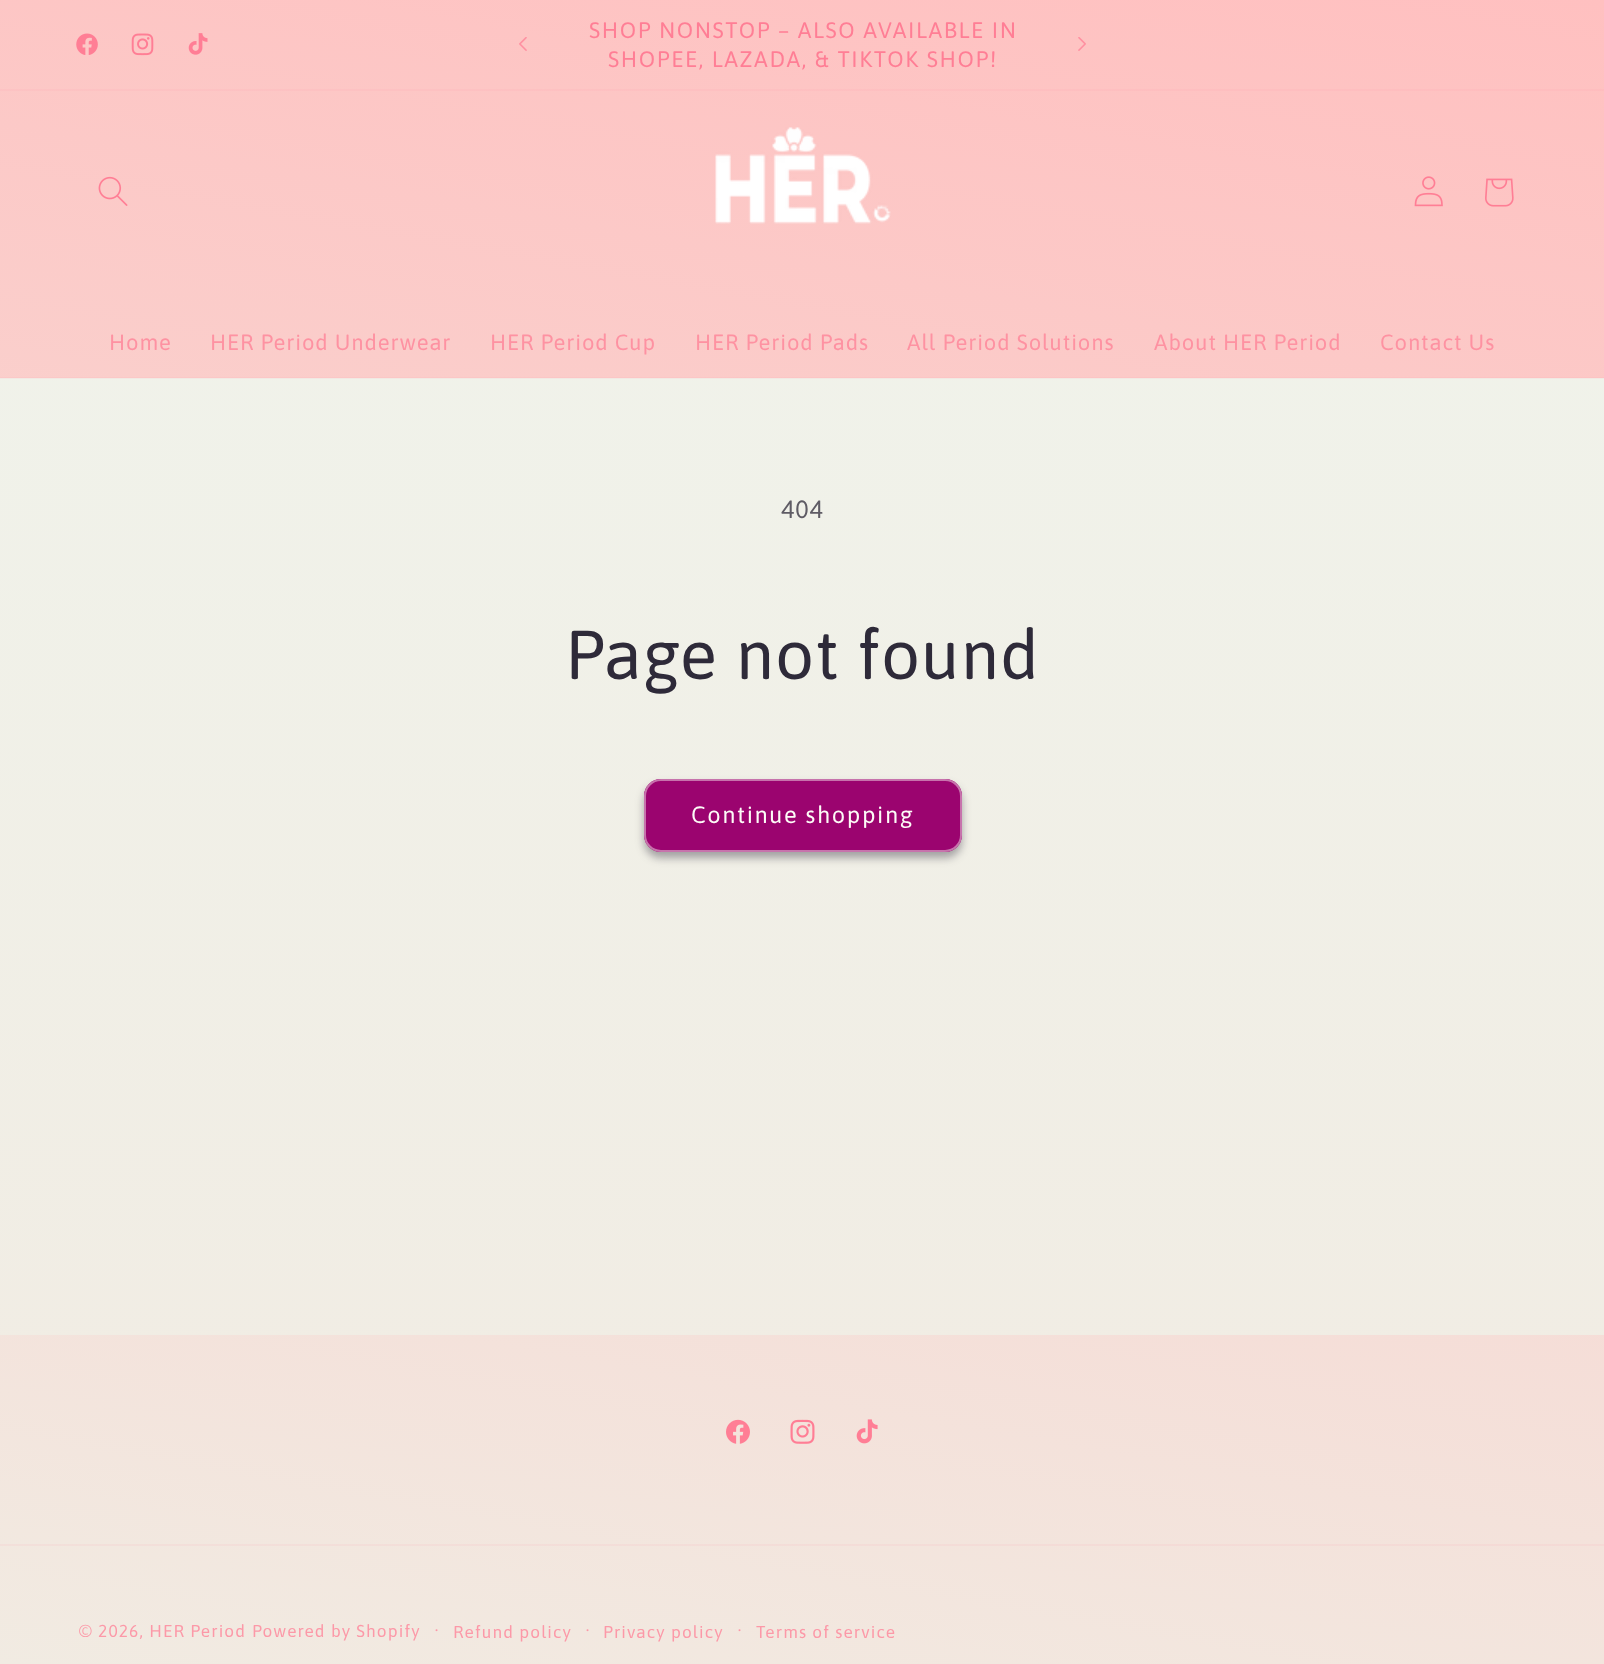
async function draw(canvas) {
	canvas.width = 1604;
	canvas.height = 1664;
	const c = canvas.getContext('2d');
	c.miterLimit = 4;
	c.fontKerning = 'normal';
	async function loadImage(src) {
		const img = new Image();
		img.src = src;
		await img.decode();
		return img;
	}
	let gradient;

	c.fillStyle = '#fff';
	c.fillRect(0, 0, 1604, 1664);
	gradient = c.createLinearGradient(802, 0, 803, 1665);
	gradient.addColorStop(0, '#f0f4ec');
	gradient.addColorStop(1, '#f1ebe2');
	c.fillStyle = gradient;
	c.fillRect(0, 379, 1604, 956);
	gradient = c.createLinearGradient(802, 0, 803, 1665);
	gradient.addColorStop(0, '#f1ebe5');
	gradient.addColorStop(1, '#f2e2dc');
	c.fillStyle = gradient;
	c.fillRect(0, 378, 1604, 1);
	gradient = c.createLinearGradient(969, -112, 636, 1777);
	gradient.addColorStop(0, '#ffc0c0');
	gradient.addColorStop(1, '#f1ebe2');
	c.fillStyle = gradient;
	c.fillRect(0, 0, 1604, 89);
	gradient = c.createLinearGradient(969, -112, 636, 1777);
	gradient.addColorStop(0, '#ffbbbd');
	gradient.addColorStop(1, '#f2e2dc');
	c.fillStyle = gradient;
	c.fillRect(0, 89, 1604, 1);
	c.drawImage(await loadImage('img1.png'), 76, 33, 22, 22);
	c.drawImage(await loadImage('img2.png'), 131, 33, 23, 23);
	c.drawImage(await loadImage('img3.png'), 188, 33, 20, 22);
	c.drawImage(await loadImage('img4.png'), 519, 37, 8, 14);
	c.letterSpacing = '1.6px';
	c.font = '22.4px Asap';
	c.fillStyle = '#ff7e95';
	c.fillText('SHOP NONSTOP – ALSO AVAILABLE IN', 589, 38);
	c.fillText('SHOPEE, LAZADA, & TIKTOK SHOP!', 608, 67);
	c.drawImage(await loadImage('img5.png'), 1078, 37, 8, 14);
	gradient = c.createLinearGradient(969, -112, 636, 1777);
	gradient.addColorStop(0, '#ffc0c0');
	gradient.addColorStop(1, '#f1ebe2');
	c.fillStyle = gradient;
	c.fillRect(0, 91, 1604, 286);
	gradient = c.createLinearGradient(969, -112, 636, 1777);
	gradient.addColorStop(0, '#ffbbbd');
	gradient.addColorStop(1, '#f2e2dc');
	c.fillStyle = gradient;
	c.fillRect(0, 90, 1604, 1);
	c.fillRect(0, 377, 1604, 1);
	c.drawImage(await loadImage('img6.png'), 98, 176, 30, 30);
	c.drawImage(await loadImage('img7.png'), 715, 127, 176, 97);
	c.drawImage(await loadImage('img8.png'), 1414, 176, 29, 31);
	c.drawImage(await loadImage('img9.png'), 1485, 178, 29, 29);
	c.letterSpacing = '0.9px';
	c.font = '22px Asap';
	c.fillStyle = '#fe92a2';
	for (const [text, x, y] of [
		['Home', 109, 350],
		['HER Period Underwear', 210, 350],
		['HER Period Cup', 490, 350],
		['HER Period Pads', 695, 350],
		['All Period Solutions', 907, 350],
		['About HER Period', 1154, 350],
		['Contact Us', 1380, 350],
	]) {
		c.fillText(text, x, y);
	}
	c.font = '25px Asap';
	c.fillStyle = '#5f5c65';
	c.fillText('404', 781, 518);
	c.letterSpacing = '1px';
	c.font = '69px Asap';
	c.fillStyle = '#2e2a39';
	c.fillText('Page not found', 565, 679);
	c.fillStyle = '#2e2a3966';
	c.filter = 'blur(4px)';
	c.beginPath();
	c.roundRect(644, 785, 318, 73, 17);
	c.fill();
	c.filter = 'none';
	c.fillStyle = '#9b046f';
	c.beginPath();
	c.roundRect(644, 779, 318, 73, 17);
	c.fill();
	c.beginPath();
	c.roundRect(645, 780, 316, 71, 16);
	c.strokeStyle = '#9b046f';
	c.lineWidth = 2;
	c.stroke();
	c.beginPath();
	c.roundRect(645, 780, 316, 71, 16);
	c.strokeStyle = '#fdfbf773';
	c.stroke();
	c.letterSpacing = '1.6px';
	c.font = '23.6px Asap';
	c.fillStyle = '#fdfbf7';
	c.fillText('Continue shopping', 691, 823);
	gradient = c.createLinearGradient(969, -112, 636, 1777);
	gradient.addColorStop(0, '#ffc0c0');
	gradient.addColorStop(1, '#f1ebe2');
	c.fillStyle = gradient;
	c.fillRect(0, 1335, 1604, 329);
	gradient = c.createLinearGradient(969, -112, 636, 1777);
	gradient.addColorStop(0, '#ffbbbd');
	gradient.addColorStop(1, '#f2e2dc');
	c.fillStyle = gradient;
	c.fillRect(0, 1544, 1604, 2);
	c.drawImage(await loadImage('img10.png'), 726, 1419, 24, 25);
	c.drawImage(await loadImage('img11.png'), 790, 1419, 25, 25);
	c.drawImage(await loadImage('img12.png'), 856, 1419, 22, 25);
	c.letterSpacing = '1.1px';
	c.font = '17.25px Asap';
	c.fillStyle = '#fc99a8';
	c.fillText('© 2026, HER Period', 79, 1637);
	c.fillText('Powered by Shopify', 252, 1637);
	c.font = '19px Asap';
	c.fillText('·', 434, 1637);
	c.font = '17.25px Asap';
	c.fillText('Refund policy', 453, 1638);
	c.font = '19px Asap';
	c.fillText('·', 585, 1637);
	c.font = '17.25px Asap';
	c.fillText('Privacy policy', 603, 1638);
	c.font = '19px Asap';
	c.fillText('·', 737, 1637);
	c.font = '17.25px Asap';
	c.fillText('Terms of service', 756, 1638);
}

draw(document.querySelector('canvas'));
